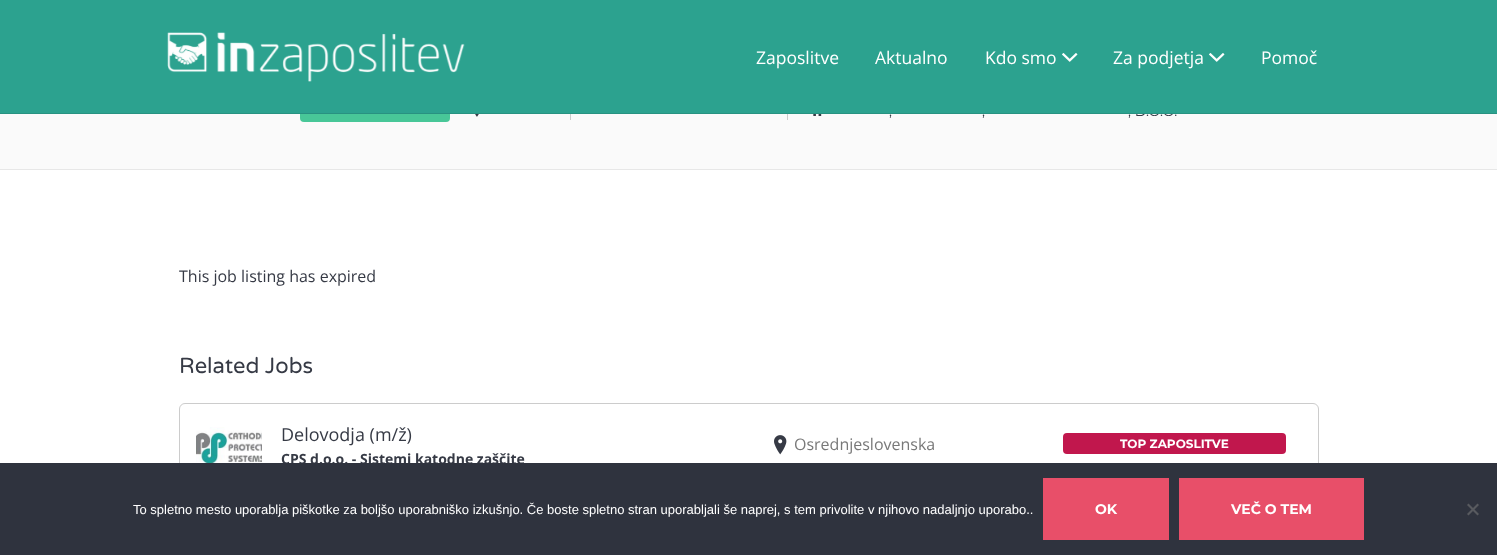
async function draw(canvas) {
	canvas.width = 1497;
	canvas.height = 555;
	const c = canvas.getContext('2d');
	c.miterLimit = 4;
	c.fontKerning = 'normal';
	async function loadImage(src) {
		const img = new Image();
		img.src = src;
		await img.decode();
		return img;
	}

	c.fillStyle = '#fff';
	c.fillRect(0, 0, 1497, 555);
	c.fillStyle = '#fafafa';
	c.fillRect(0, 114, 1497, 55);
	c.fillStyle = '#48c798';
	c.beginPath();
	c.roundRect(300, 101, 150, 21, 4);
	c.fill();
	c.font = '14px Montserrat';
	c.fillStyle = '#363a45';
	c.fillText(', D.O.O.', 1128, 116);
	c.fillStyle = '#2ca28f';
	c.fillRect(0, 0, 1497, 113);
	c.fillStyle = '#289281';
	c.fillRect(0, 113, 1497, 1);
	c.drawImage(await loadImage('img1.png'), 167, 32, 298, 50);
	c.font = '17.5px Open Sans';
	c.fillStyle = '#fff';
	for (const [text, x, y] of [
		['Zaposlitve', 756, 64],
		['Aktualno', 875, 64],
		['Kdo smo', 985, 64],
	]) {
		c.fillText(text, x, y);
	}
	c.drawImage(await loadImage('img2.png'), 1062, 53, 16, 9);
	c.fillText('Za podjetja', 1113, 64);
	c.drawImage(await loadImage('img2.png'), 1209, 53, 16, 9);
	c.fillText('Pomoč', 1261, 64);
	c.fillStyle = '#e7e7e7';
	c.fillRect(0, 169, 1497, 1);
	c.fillStyle = '#ccc';
	c.fillRect(570, 114, 1, 6);
	c.drawImage(await loadImage('img3.png'), 475, 114, 4, 3);
	c.fillRect(787, 114, 1, 6);
	c.drawImage(await loadImage('img4.png'), 813, 114, 9, 2);
	c.font = '14px Montserrat';
	c.fillStyle = '#363a45';
	c.fillText(',', 889, 116);
	c.fillText(',', 982, 116);
	c.font = '16px Open Sans';
	c.fillText('This job listing has expired', 179, 282);
	c.font = '22px Varela Round';
	c.fillText('Related Jobs', 179, 373);
	c.beginPath();
	c.roundRect(179.5, 403.5, 1139, 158, 5.5);
	c.strokeStyle = '#ccc';
	c.stroke();
	c.drawImage(await loadImage('img5.png'), 196, 427, 66, 36);
	c.font = '18px Open Sans';
	c.fillText('Delovodja (m/ž)', 281, 441);
	c.font = 'bold 14px Open Sans';
	c.fillText('CPS d.o.o. - Sistemi katodne zaščite', 281, 464);
	c.drawImage(await loadImage('img6.png'), 774, 435, 13, 20);
	c.font = '16px Open Sans';
	c.fillStyle = '#797979';
	c.fillText('Osrednjeslovenska', 794, 450);
	c.fillStyle = '#c1174d';
	c.beginPath();
	c.roundRect(1063, 433, 223, 21, 4);
	c.fill();
	c.font = 'bold 12px Montserrat';
	c.fillStyle = '#fff';
	c.fillText('TOP ZAPOSLITVE', 1120, 448);
	c.fillStyle = '#2f333e';
	c.fillRect(0, 463, 1497, 92);
	c.font = '13px Liberation Sans';
	c.fillStyle = '#fff';
	c.fillText('To spletno mesto uporablja piškotke za boljšo uporabniško izkušnjo. Če boste spletno stran uporabljali še naprej, s tem privolite v njihovo nadaljnjo uporabo..', 133, 514);
	c.fillStyle = '#e84f69';
	c.fillRect(1043, 478, 126, 62);
	c.font = 'bold 14px Montserrat';
	c.fillStyle = '#fff';
	c.fillText('OK', 1095, 514);
	c.fillStyle = '#e84f69';
	c.fillRect(1179, 478, 185, 62);
	c.fillStyle = '#fff';
	c.fillText('VEČ O TEM', 1231, 514);
	c.fillStyle = '#585a5f';
	c.beginPath();
	c.moveTo(1477.5, 503.5);
	c.lineTo(1479, 505);
	c.lineTo(1468.5, 515.5);
	c.lineTo(1467, 514);
	c.closePath();
	c.fill();
	c.beginPath();
	c.moveTo(1467, 505);
	c.lineTo(1468.5, 503.5);
	c.lineTo(1479, 514);
	c.lineTo(1477.5, 515.5);
	c.closePath();
	c.fill();
}

draw(document.querySelector('canvas'));
